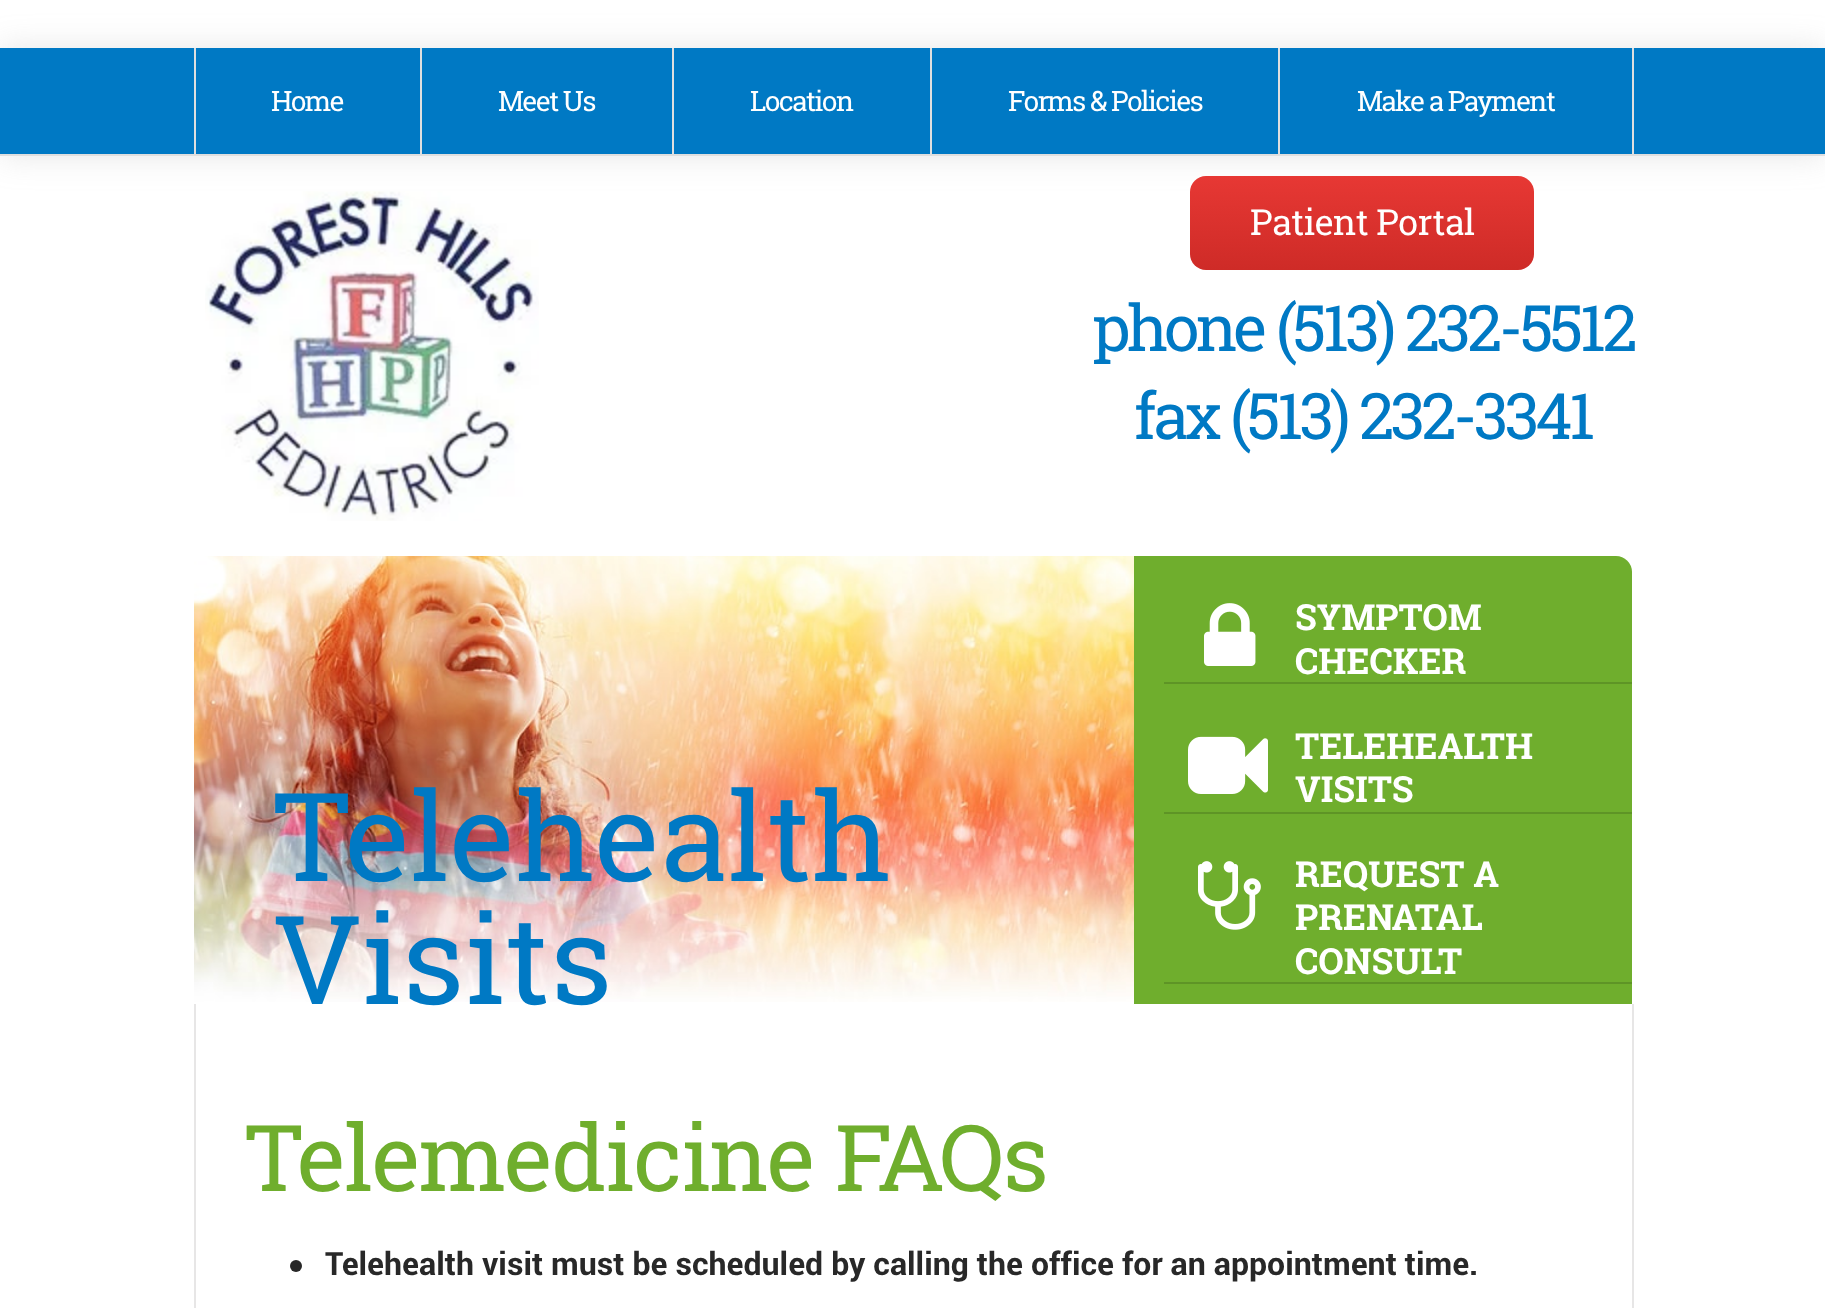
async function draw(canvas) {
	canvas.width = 1825;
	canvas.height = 1308;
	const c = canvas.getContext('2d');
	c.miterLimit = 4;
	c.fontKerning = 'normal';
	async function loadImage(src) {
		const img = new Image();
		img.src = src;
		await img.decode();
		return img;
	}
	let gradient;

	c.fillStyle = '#fff';
	c.fillRect(0, 0, 1825, 1308);
	c.fillStyle = '#9a9a9a40';
	c.filter = 'blur(16px)';
	c.beginPath();
	c.rect(0, 48, 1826, 108);
	c.fill();
	c.filter = 'none';
	for (const [x, y, w, h, color] of [
		[0, 48, 1825, 106, '#0079c4'],
		[0, 154, 1825, 2, '#dfdfdf'],
		[194, 48, 2, 106, '#dfdfdf'],
		[420, 48, 2, 106, '#dfdfdf'],
	]) {
		c.fillStyle = color;
		c.fillRect(x, y, w, h);
	}
	c.letterSpacing = '-1.7px';
	c.font = '28px Roboto Slab';
	c.fillStyle = '#fff';
	c.fillText('Home', 271, 111);
	c.fillStyle = '#dfdfdf';
	c.fillRect(672, 48, 2, 106);
	c.fillStyle = '#fff';
	c.fillText('Meet Us', 498, 111);
	c.fillStyle = '#dfdfdf';
	c.fillRect(930, 48, 2, 106);
	c.fillStyle = '#fff';
	c.fillText('Location', 750, 111);
	c.fillStyle = '#dfdfdf';
	c.fillRect(1278, 48, 2, 106);
	c.fillStyle = '#fff';
	c.fillText('Forms & Policies', 1008, 111);
	c.fillStyle = '#dfdfdf';
	c.fillRect(1632, 48, 2, 106);
	c.fillStyle = '#fff';
	c.fillText('Make a Payment', 1357, 111);
	c.drawImage(await loadImage('img1.png'), 205, 191, 334, 330);
	gradient = c.createLinearGradient(1362, 176, 1362, 270);
	gradient.addColorStop(0, '#e73834');
	gradient.addColorStop(1, '#ce2b27');
	c.fillStyle = gradient;
	c.beginPath();
	c.roundRect(1190, 176, 344, 94, 16);
	c.fill();
	c.letterSpacing = '-0.75px';
	c.font = '36px Roboto Slab';
	c.fillStyle = '#fff';
	c.fillText('Patient Portal', 1250, 235);
	c.letterSpacing = '-3.8px';
	c.font = '64px Roboto Slab';
	c.fillStyle = '#0079c4';
	c.fillText('phone (513) 232-5512', 1092, 351);
	c.fillText('fax (513) 232-3341', 1134, 439);
	c.drawImage(await loadImage('img2.png'), 194, 556, 940, 446);
	c.letterSpacing = '0px';
	c.font = '123px Roboto Slab';
	c.fillText('Telehealth', 273, 881);
	c.fillStyle = '#e7e6e6';
	c.beginPath();
	c.moveTo(194, 1004);
	c.lineTo(1634, 1004);
	c.lineTo(1634, 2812);
	c.bezierCurveTo(1634, 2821, 1627, 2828, 1618, 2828);
	c.lineTo(210, 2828);
	c.bezierCurveTo(201, 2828, 194, 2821, 194, 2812);
	c.closePath();
	c.moveTo(196, 1004);
	c.lineTo(1632, 1004);
	c.lineTo(1632, 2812);
	c.bezierCurveTo(1632, 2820, 1626, 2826, 1618, 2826);
	c.lineTo(210, 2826);
	c.bezierCurveTo(202, 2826, 196, 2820, 196, 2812);
	c.closePath();
	c.fill('evenodd');
	c.fillStyle = '#0079c4';
	c.fillText('Visits', 273, 1004);
	c.fillStyle = '#6fae2d';
	c.beginPath();
	c.roundRect(1134, 556, 498, 448, [0, 16, 0, 0]);
	c.fill();
	c.fillStyle = '#5e9426';
	c.fillRect(1164, 682, 468, 2);
	c.drawImage(await loadImage('img3.png'), 1204, 603, 52, 63);
	c.font = 'bold 36px Roboto Slab';
	c.fillStyle = '#fff';
	c.fillText('SYMPTOM', 1295, 630);
	c.fillText('CHECKER', 1295, 674);
	c.fillStyle = '#5e9426';
	c.fillRect(1164, 812, 468, 2);
	c.drawImage(await loadImage('img4.png'), 1188, 736, 80, 58);
	c.fillStyle = '#fff';
	c.fillText('TELEHEALTH', 1295, 759);
	c.fillText('VISITS', 1295, 802);
	c.fillStyle = '#5e9426';
	c.fillRect(1164, 982, 468, 2);
	c.drawImage(await loadImage('img5.png'), 1198, 861, 63, 69);
	c.fillStyle = '#fff';
	for (const [text, x, y] of [
		['REQUEST A', 1295, 887],
		['PRENATAL', 1295, 930],
		['CONSULT', 1295, 974],
	]) {
		c.fillText(text, x, y);
	}
	c.letterSpacing = '-1.8px';
	c.font = '92px Roboto Slab';
	c.fillStyle = '#6fae2d';
	c.fillText('Telemedicine FAQs', 245, 1191);
	c.fillStyle = '#282828';
	c.beginPath();
	c.arc(296, 1266, 6, 0, 2 * Math.PI);
	c.fill();
	c.letterSpacing = '0px';
	c.font = 'bold 32px Roboto';
	c.fillText('Telehealth visit must be scheduled by calling the office for an appointment time.', 325, 1275);
}

draw(document.querySelector('canvas'));
